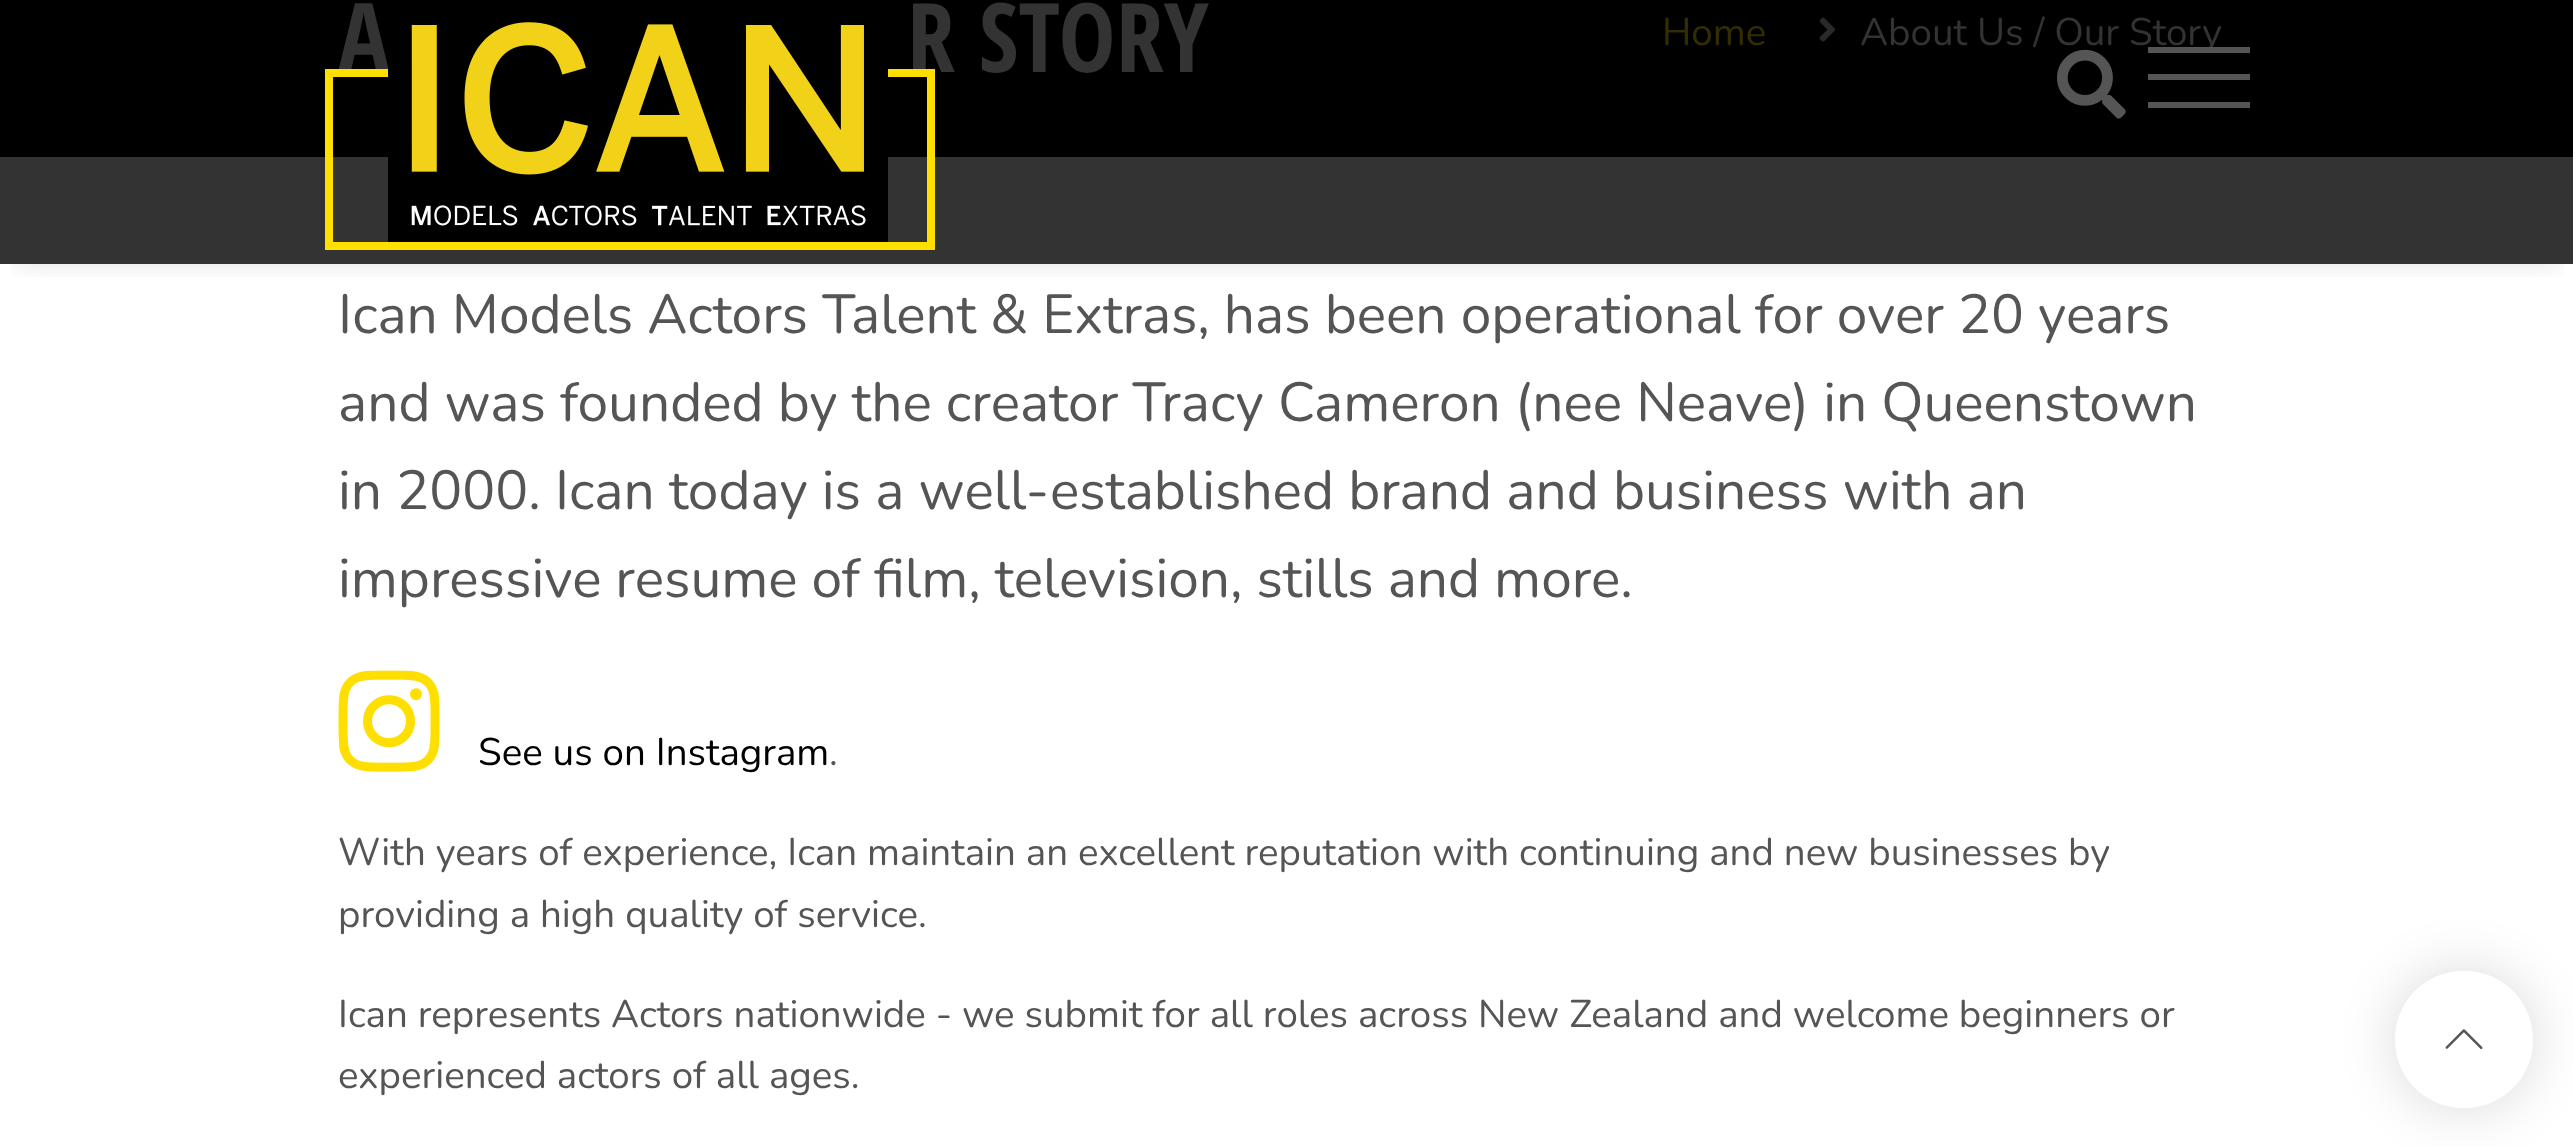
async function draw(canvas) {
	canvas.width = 2573;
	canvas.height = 1147;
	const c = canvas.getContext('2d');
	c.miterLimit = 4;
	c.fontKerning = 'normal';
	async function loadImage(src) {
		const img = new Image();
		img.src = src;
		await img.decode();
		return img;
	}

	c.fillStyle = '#fff';
	c.fillRect(0, 0, 2573, 1147);
	c.fillStyle = '#333';
	c.fillRect(0, 157, 2573, 107);
	c.fillStyle = '#000';
	c.fillRect(0, 0, 2573, 157);
	c.drawImage(await loadImage('img3.png'), 1819, 17, 17, 25);
	c.save();
	c.beginPath();
	c.rect(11, 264, 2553, 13);
	c.clip();
	c.fillStyle = '#00000026';
	c.filter = 'blur(14px)';
	c.beginPath();
	c.rect(17, 30, 2541, 231);
	c.fill();
	c.filter = 'none';
	c.restore();
	c.font = 'bold 96px Open Sans Condensed';
	c.fillStyle = '#333';
	c.fillText('A', 338, 72);
	c.fillText('R STORY', 907, 72);
	c.strokeStyle = '#ffdf00';
	c.lineWidth = 8;
	c.strokeRect(329, 73, 602, 173);
	c.drawImage(await loadImage('img1.png'), 388, 22, 500, 220);
	c.font = '38.5px Nunito';
	c.fillText('About Us / Our Story', 1860, 45);
	c.drawImage(await loadImage('img2.png'), 2057, 49, 69, 70);
	for (const [x, y, w, h, color] of [
		[2148, 47, 102, 6, '#555'],
		[2148, 74, 102, 6, '#555'],
		[2148, 102, 102, 6, '#555'],
	]) {
		c.fillStyle = color;
		c.fillRect(x, y, w, h);
	}
	c.fillStyle = '#332d00';
	c.fillText('Home', 1662, 45);
	c.wordSpacing = '-0.1px';
	c.font = '55px Nunito';
	c.fillStyle = '#555';
	c.fillText('Ican Models Actors Talent & Extras, has been operational for over 20 years', 338, 333);
	c.fillText('and was founded by the creator Tracy Cameron (nee Neave) in Queenstown', 338, 421);
	c.wordSpacing = '0px';
	c.fillText('in 2000. Ican today is a well-established brand and business with an', 338, 509);
	c.wordSpacing = '-0.25px';
	c.fillText('impressive resume of film, television, stills and more.', 338, 597);
	c.drawImage(await loadImage('img4.png'), 338, 670, 102, 102);
	c.wordSpacing = '0px';
	c.font = '38.5px Nunito';
	c.fillStyle = '#000';
	c.fillText('See us on Instagram', 478, 765);
	c.fillStyle = '#555';
	for (const [text, x, y] of [
		['.', 829, 765],
		['With years of experience, Ican maintain an excellent reputation with continuing and new businesses by', 338, 865],
		['providing a high quality of service.', 338, 927],
		['Ican represents Actors nationwide - we submit for all roles across New Zealand and welcome beginners or', 338, 1027],
		['experienced actors of all ages.', 338, 1088],
	]) {
		c.fillText(text, x, y);
	}
	c.save();
	c.beginPath();
	c.moveTo(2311, 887);
	c.lineTo(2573, 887);
	c.lineTo(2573, 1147);
	c.lineTo(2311, 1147);
	c.closePath();
	c.moveTo(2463.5, 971);
	c.lineTo(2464.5, 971);
	c.bezierCurveTo(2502.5, 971, 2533, 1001.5, 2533, 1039.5);
	c.bezierCurveTo(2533, 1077.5, 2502.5, 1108, 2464.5, 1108);
	c.lineTo(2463.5, 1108);
	c.bezierCurveTo(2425.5, 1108, 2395, 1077.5, 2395, 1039.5);
	c.bezierCurveTo(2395, 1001.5, 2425.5, 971, 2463.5, 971);
	c.closePath();
	c.clip('evenodd');
	c.fillStyle = '#00000026';
	c.filter = 'blur(27.5px)';
	c.beginPath();
	c.roundRect(2395, 971, 138, 137, 68.5);
	c.fill();
	c.filter = 'none';
	c.restore();
	c.fillStyle = '#ffffffb3';
	c.beginPath();
	c.roundRect(2395, 971, 138, 137, 68.5);
	c.fill();
	c.drawImage(await loadImage('img5.png'), 2445, 1029, 38, 21);
}

draw(document.querySelector('canvas'));
